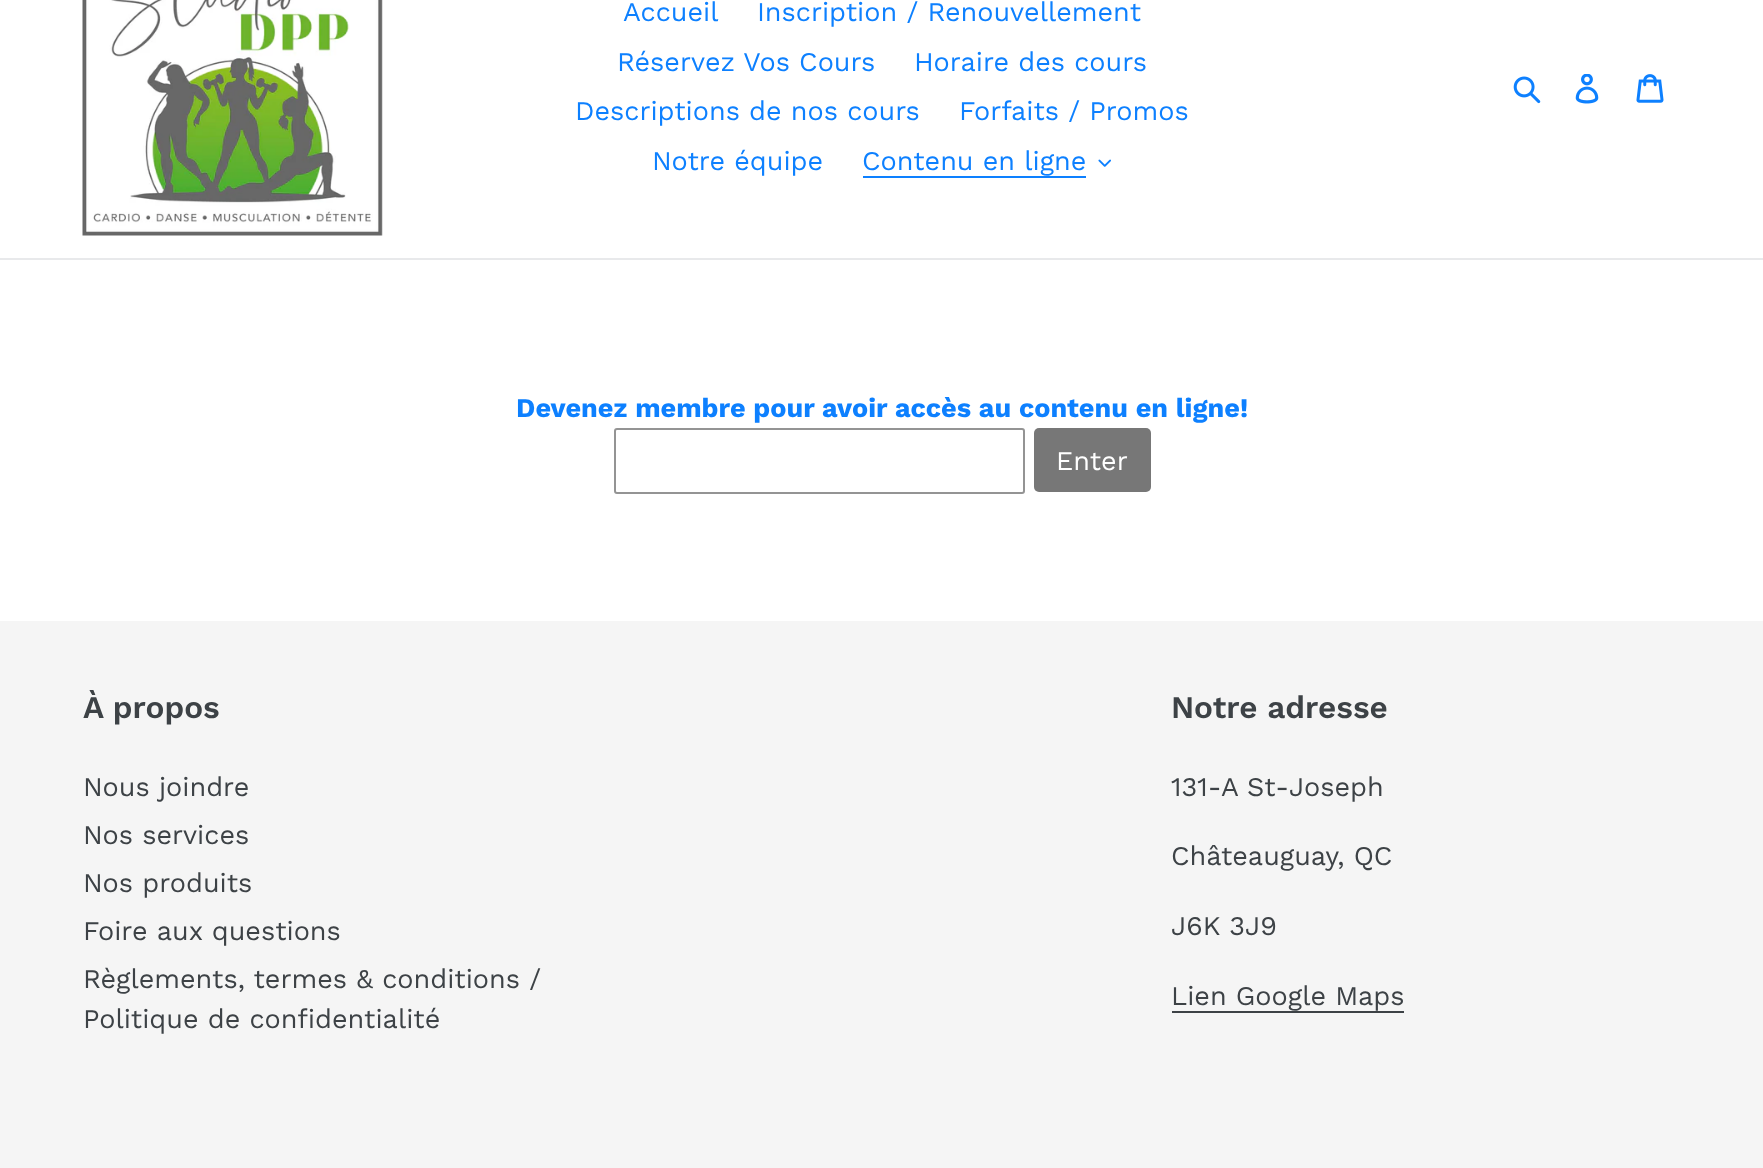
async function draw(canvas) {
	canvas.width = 1763;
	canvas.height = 1168;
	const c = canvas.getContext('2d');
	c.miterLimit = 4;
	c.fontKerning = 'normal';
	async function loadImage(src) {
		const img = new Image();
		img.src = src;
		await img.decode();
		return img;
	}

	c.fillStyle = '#fff';
	c.fillRect(0, 0, 1763, 1168);
	c.fillStyle = '#e8e9eb';
	c.fillRect(0, 258, 1763, 2);
	c.drawImage(await loadImage('img1.png'), 82, 0, 301, 236);
	c.font = '27px Work Sans';
	c.fillStyle = '#0d80ff';
	for (const [text, x, y] of [
		['Accueil', 623, 21],
		['Inscription / Renouvellement', 757, 21],
		['Réservez Vos Cours', 617, 71],
		['Horaire des cours', 914, 71],
		['Descriptions de nos cours', 575, 120],
		['Forfaits / Promos', 959, 120],
		['Notre équipe', 652, 170],
		['Contenu en ligne', 862, 170],
	]) {
		c.fillText(text, x, y);
	}
	c.fillRect(863, 176, 223, 2);
	c.drawImage(await loadImage('img2.png'), 1098, 159, 13, 8);
	c.drawImage(await loadImage('img3.png'), 1513, 76, 28, 28);
	c.drawImage(await loadImage('img4.png'), 1575, 74, 24, 30);
	c.drawImage(await loadImage('img5.png'), 1636, 74, 28, 29);
	c.font = 'bold 27px Work Sans';
	c.fillText('Devenez membre pour avoir accès au contenu en ligne!', 516, 417);
	c.beginPath();
	c.roundRect(615, 429, 409, 64, 2);
	c.strokeStyle = '#949494';
	c.lineWidth = 2;
	c.stroke();
	c.fillStyle = '#777';
	c.beginPath();
	c.roundRect(1034, 428, 117, 64, 5);
	c.fill();
	c.font = '27px Work Sans';
	c.fillStyle = '#fff';
	c.fillText('Enter', 1056, 470);
	c.fillStyle = '#f5f5f5';
	c.fillRect(0, 621, 1763, 547);
	c.font = '600 31.5px Work Sans';
	c.fillStyle = '#3d4246';
	c.fillText('À propos', 83, 718);
	c.font = '27px Work Sans';
	for (const [text, x, y] of [
		['Nous joindre', 83, 796],
		['Nos services', 83, 844],
		['Nos produits', 83, 892],
		['Foire aux questions', 83, 940],
		['Règlements, termes & conditions /', 83, 988],
		['Politique de confidentialité', 83, 1028],
	]) {
		c.fillText(text, x, y);
	}
	c.font = '600 31.5px Work Sans';
	c.fillText('Notre adresse', 1171, 718);
	c.font = '27px Work Sans';
	for (const [text, x, y] of [
		['131-A St-Joseph', 1171, 796],
		['Châteauguay, QC', 1171, 865],
		['J6K 3J9', 1171, 935],
		['Lien Google Maps', 1171, 1005],
	]) {
		c.fillText(text, x, y);
	}
	c.fillRect(1172, 1011, 232, 2);
}

draw(document.querySelector('canvas'));
